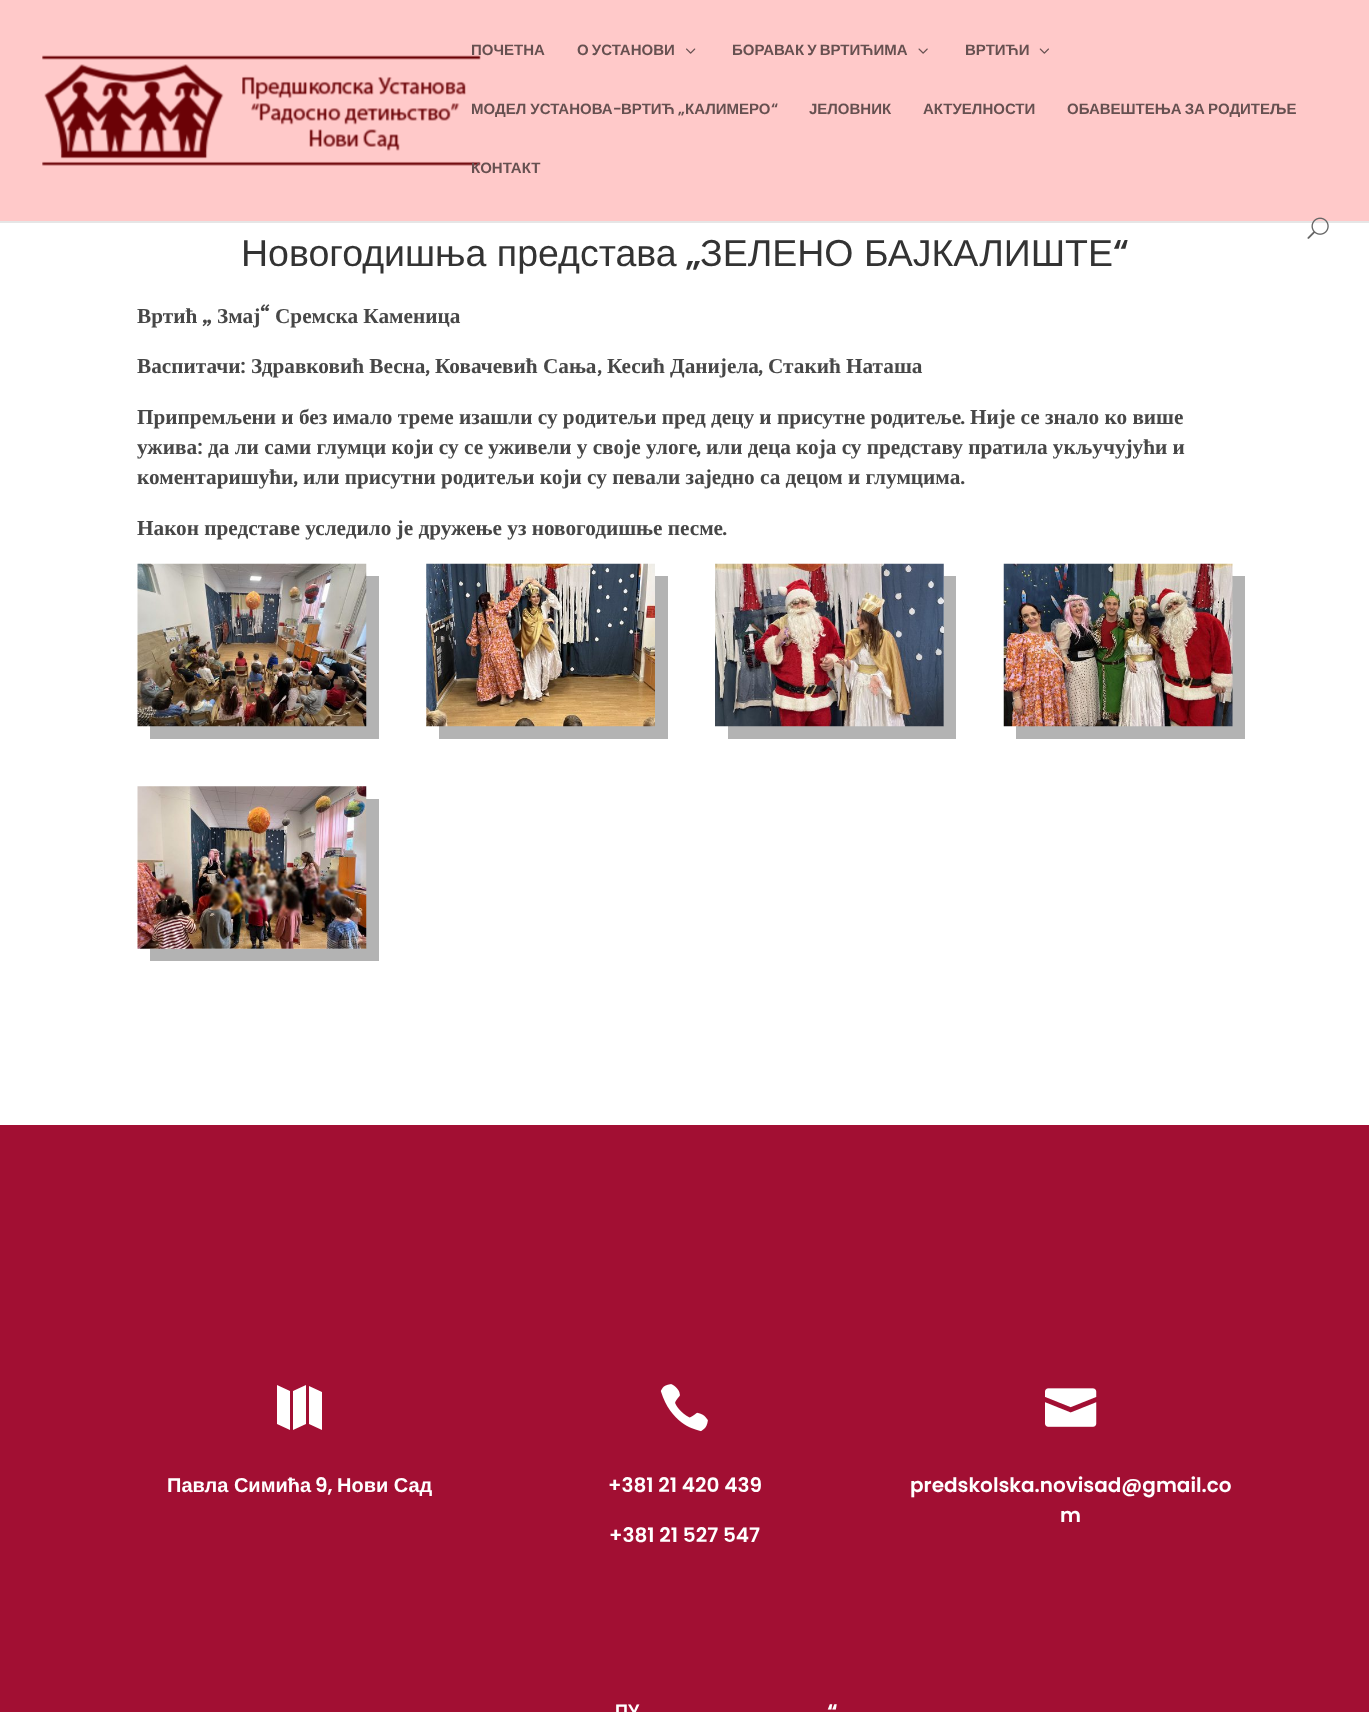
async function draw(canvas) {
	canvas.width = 1369;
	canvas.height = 1712;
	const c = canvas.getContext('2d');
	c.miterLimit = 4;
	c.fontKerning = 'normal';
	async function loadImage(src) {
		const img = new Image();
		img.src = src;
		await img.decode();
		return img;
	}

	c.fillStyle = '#fff';
	c.fillRect(0, 0, 1369, 1712);
	c.fillStyle = '#e6e6e6';
	c.fillRect(0, 221, 1369, 2);
	c.fillStyle = '#ffc9c9';
	c.fillRect(0, 0, 1369, 221);
	c.drawImage(await loadImage('img1.png'), 42, 55, 439, 111);
	c.font = 'bold 15px Liberation Sans';
	c.fillStyle = '#665050';
	c.fillText('ПОЧЕТНА', 471, 55);
	c.wordSpacing = '-1px';
	c.fillText('О УСТАНОВИ', 577, 55);
	c.drawImage(await loadImage('img2.png'), 686, 48, 10, 6);
	c.fillText('БОРАВАК У ВРТИЋИМА', 732, 55);
	c.drawImage(await loadImage('img3.png'), 918, 48, 10, 6);
	c.wordSpacing = '0px';
	c.fillText('ВРТИЋИ', 965, 55);
	c.drawImage(await loadImage('img4.png'), 1039, 48, 10, 6);
	for (const [text, x, y] of [
		['МОДЕЛ УСТАНОВА', 471, 114],
		['ВРТИЋ', 621, 114],
		['КАЛИМЕРО', 685, 114],
	]) {
		c.fillText(text, x, y);
	}
	c.font = '600 15px Poppins';
	for (const [text, x, y] of [
		['“', 771, 114],
		['-', 613, 114],
		['„', 678, 114],
	]) {
		c.fillText(text, x, y);
	}
	c.font = 'bold 15px Liberation Sans';
	c.fillText('ЈЕЛОВНИК', 809, 114);
	c.fillText('АКТУЕЛНОСТИ', 923, 114);
	c.wordSpacing = '-1px';
	c.fillText('ОБАВЕШТЕЊА ЗА РОДИТЕЉЕ', 1067, 114);
	c.wordSpacing = '0px';
	c.fillText('КОНТАКТ', 471, 173);
	c.drawImage(await loadImage('img5.png'), 1307, 217, 22, 22);
	c.font = '37.5px Liberation Sans';
	c.fillStyle = '#333';
	c.fillText('Новогодишња представа', 241, 266);
	c.font = '500 37.5px Poppins';
	c.fillText('„', 686, 266);
	c.font = '37.5px Liberation Sans';
	c.fillText('ЗЕЛЕНО БАЈКАЛИШТЕ', 700, 266);
	c.font = '500 37.5px Poppins';
	c.fillText('“', 1113, 266);
	c.font = 'bold 21.25px Liberation Serif';
	c.fillStyle = '#474747';
	c.fillText('Вртић', 137, 323);
	c.font = 'bold 21.25px Adamina';
	c.fillText('„', 202, 323);
	c.font = 'bold 21.25px Liberation Serif';
	c.fillText('Змај', 217, 323);
	c.font = 'bold 21.25px Adamina';
	c.fillText('“', 260, 323);
	c.font = 'bold 21.25px Liberation Serif';
	c.fillText('Сремска Каменица', 275, 323);
	c.fillText('Васпитачи', 137, 373);
	c.font = 'bold 21.25px Adamina';
	c.fillText(':', 240, 373);
	c.font = 'bold 21.25px Liberation Serif';
	c.fillText('Здравковић Весна', 251, 373);
	c.font = 'bold 21.25px Adamina';
	c.fillText(',', 425, 373);
	c.font = 'bold 21.25px Liberation Serif';
	c.fillText('Ковачевић Сања', 435, 373);
	c.font = 'bold 21.25px Adamina';
	c.fillText(',', 597, 373);
	c.font = 'bold 21.25px Liberation Serif';
	c.fillText('Кесић Данијела', 607, 373);
	c.font = 'bold 21.25px Adamina';
	c.fillText(',', 758, 373);
	c.font = 'bold 21.25px Liberation Serif';
	c.fillText('Стакић Наташа', 768, 373);
	c.fillText('Припремљени и без имало треме изашли су родитељи пред децу и присутне родитеље', 137, 424);
	c.font = 'bold 21.25px Adamina';
	c.fillText('.', 960, 424);
	c.font = 'bold 21.25px Liberation Serif';
	c.fillText('Није се знало ко више', 970, 424);
	c.fillText('ужива', 137, 454);
	c.font = 'bold 21.25px Adamina';
	c.fillText(':', 197, 454);
	c.font = 'bold 21.25px Liberation Serif';
	c.fillText('да ли сами глумци који су се уживели у своје улоге', 208, 454);
	c.font = 'bold 21.25px Adamina';
	c.fillText(',', 696, 454);
	c.font = 'bold 21.25px Liberation Serif';
	c.fillText('или деца која су представу пратила укључујући и', 706, 454);
	c.fillText('коментаришући', 137, 484);
	c.font = 'bold 21.25px Adamina';
	c.fillText(',', 293, 484);
	c.font = 'bold 21.25px Liberation Serif';
	c.fillText('или присутни родитељи који су певали заједно са децом и глумцима', 303, 484);
	c.font = 'bold 21.25px Adamina';
	c.fillText('.', 960, 484);
	c.font = 'bold 21.25px Liberation Serif';
	c.fillText('Након представе уследило је дружење уз новогодишње песме', 137, 535);
	c.font = 'bold 21.25px Adamina';
	c.fillText('.', 722, 535);
	c.fillStyle = '#b3b3b3';
	c.beginPath();
	c.moveTo(150, 726);
	c.lineTo(150, 739);
	c.lineTo(379, 739);
	c.lineTo(379, 576);
	c.lineTo(366, 576);
	c.lineTo(366, 726);
	c.closePath();
	c.fill();
	c.drawImage(await loadImage('img6.png'), 137, 563, 230, 164);
	c.beginPath();
	c.moveTo(439, 726);
	c.lineTo(439, 739);
	c.lineTo(668, 739);
	c.lineTo(668, 576);
	c.lineTo(655, 576);
	c.lineTo(655, 726);
	c.closePath();
	c.fill();
	c.drawImage(await loadImage('img7.png'), 426, 563, 229, 164);
	c.beginPath();
	c.moveTo(728, 726);
	c.lineTo(728, 739);
	c.lineTo(956, 739);
	c.lineTo(956, 576);
	c.lineTo(944, 576);
	c.lineTo(944, 726);
	c.closePath();
	c.fill();
	c.drawImage(await loadImage('img8.png'), 715, 563, 229, 164);
	c.beginPath();
	c.moveTo(1016, 726);
	c.lineTo(1016, 739);
	c.lineTo(1245, 739);
	c.lineTo(1245, 576);
	c.lineTo(1232, 576);
	c.lineTo(1232, 726);
	c.closePath();
	c.fill();
	c.drawImage(await loadImage('img9.png'), 1003, 563, 230, 164);
	c.beginPath();
	c.moveTo(150, 949);
	c.lineTo(150, 961);
	c.lineTo(379, 961);
	c.lineTo(379, 799);
	c.lineTo(366, 799);
	c.lineTo(366, 949);
	c.closePath();
	c.fill();
	c.drawImage(await loadImage('img10.png'), 137, 786, 230, 163);
	c.fillStyle = '#a20f33';
	c.fillRect(0, 1125, 1369, 587);
	c.fillStyle = '#fff';
	c.beginPath();
	c.moveTo(290, 1391);
	c.lineTo(277, 1385);
	c.lineTo(277, 1424);
	c.lineTo(290, 1430);
	c.closePath();
	c.moveTo(293, 1430);
	c.lineTo(306, 1424);
	c.lineTo(306, 1385);
	c.lineTo(293, 1391);
	c.closePath();
	c.moveTo(309, 1424);
	c.lineTo(322, 1430);
	c.lineTo(322, 1392);
	c.lineTo(309, 1386);
	c.closePath();
	c.fill();
	c.font = 'bold 20px Liberation Sans';
	c.fillText('Павла Симића', 167, 1492);
	c.font = '600 20px Poppins';
	c.fillText('9,', 315, 1492);
	c.font = 'bold 20px Liberation Sans';
	c.fillText('Нови Сад', 337, 1492);
	c.drawImage(await loadImage('img11.png'), 660, 1384, 48, 48);
	c.font = '600 20px Poppins';
	c.fillText('+381 21 420 439', 608, 1492);
	c.fillText('+381 21 527 547', 609, 1542);
	c.drawImage(await loadImage('img12.png'), 1045, 1388, 52, 39);
	c.fillText('predskolska.novisad@gmail.co', 910, 1492);
	c.fillText('m', 1060, 1522);
	c.font = 'bold 18px Liberation Sans';
	c.fillText('ПУ', 615, 1717);
	c.font = '800 18px Poppins';
	c.fillText('“', 827, 1717);
}

draw(document.querySelector('canvas'));
